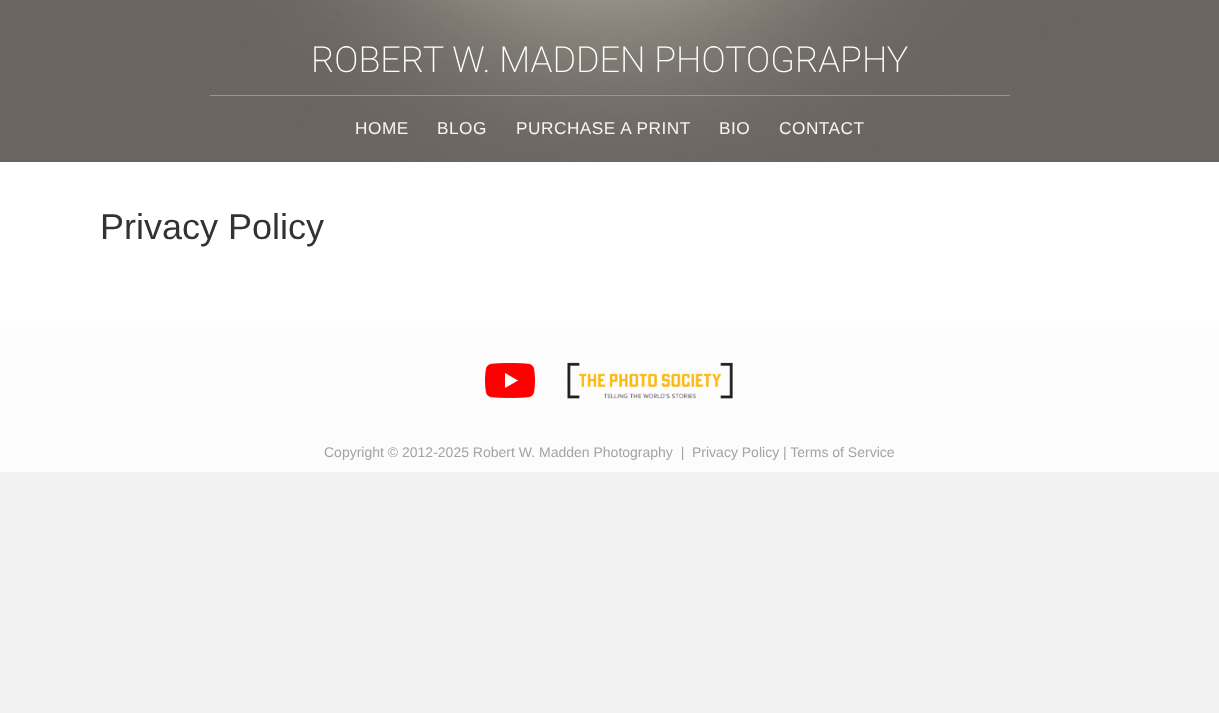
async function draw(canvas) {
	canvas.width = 1219;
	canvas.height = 713;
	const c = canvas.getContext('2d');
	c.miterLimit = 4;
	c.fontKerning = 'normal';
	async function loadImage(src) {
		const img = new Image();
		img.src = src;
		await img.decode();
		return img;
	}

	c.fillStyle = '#f2f2f2';
	c.fillRect(0, 0, 1219, 713);
	c.drawImage(await loadImage('img1.png'), 0, 0, 1219, 162);
	c.font = '200 36px Roboto';
	c.fillStyle = '#fff';
	c.fillText('ROBERT W. MADDEN PHOTOGRAPHY', 311, 72);
	c.fillStyle = '#969696';
	c.fillRect(210, 95, 800, 1);
	c.letterSpacing = '0.5px';
	c.font = '17.25px Liberation Sans';
	c.fillStyle = '#f5f5f5';
	for (const [text, x, y] of [
		['HOME', 355, 134],
		['BLOG', 437, 134],
		['PURCHASE A PRINT', 516, 134],
		['BIO', 719, 134],
		['CONTACT', 779, 134],
	]) {
		c.fillText(text, x, y);
	}
	c.fillStyle = '#fff';
	c.fillRect(0, 162, 1219, 165);
	c.letterSpacing = '0px';
	c.font = '36px Liberation Sans';
	c.fillStyle = '#333';
	c.fillText('Privacy Policy', 100, 239);
	c.fillStyle = '#fcfcfc';
	c.fillRect(0, 327, 1219, 145);
	c.drawImage(await loadImage('img2.png'), 485, 363, 50, 35);
	c.drawImage(await loadImage('img3.png'), 567, 362, 166, 37);
	c.font = '14px Liberation Sans';
	c.fillStyle = '#a3a3a3';
	c.fillText('Copyright © 2012-2025 Robert W. Madden Photography  |', 324, 457);
	c.fillText('Privacy Policy | Terms of Service', 692, 457);
}

draw(document.querySelector('canvas'));
